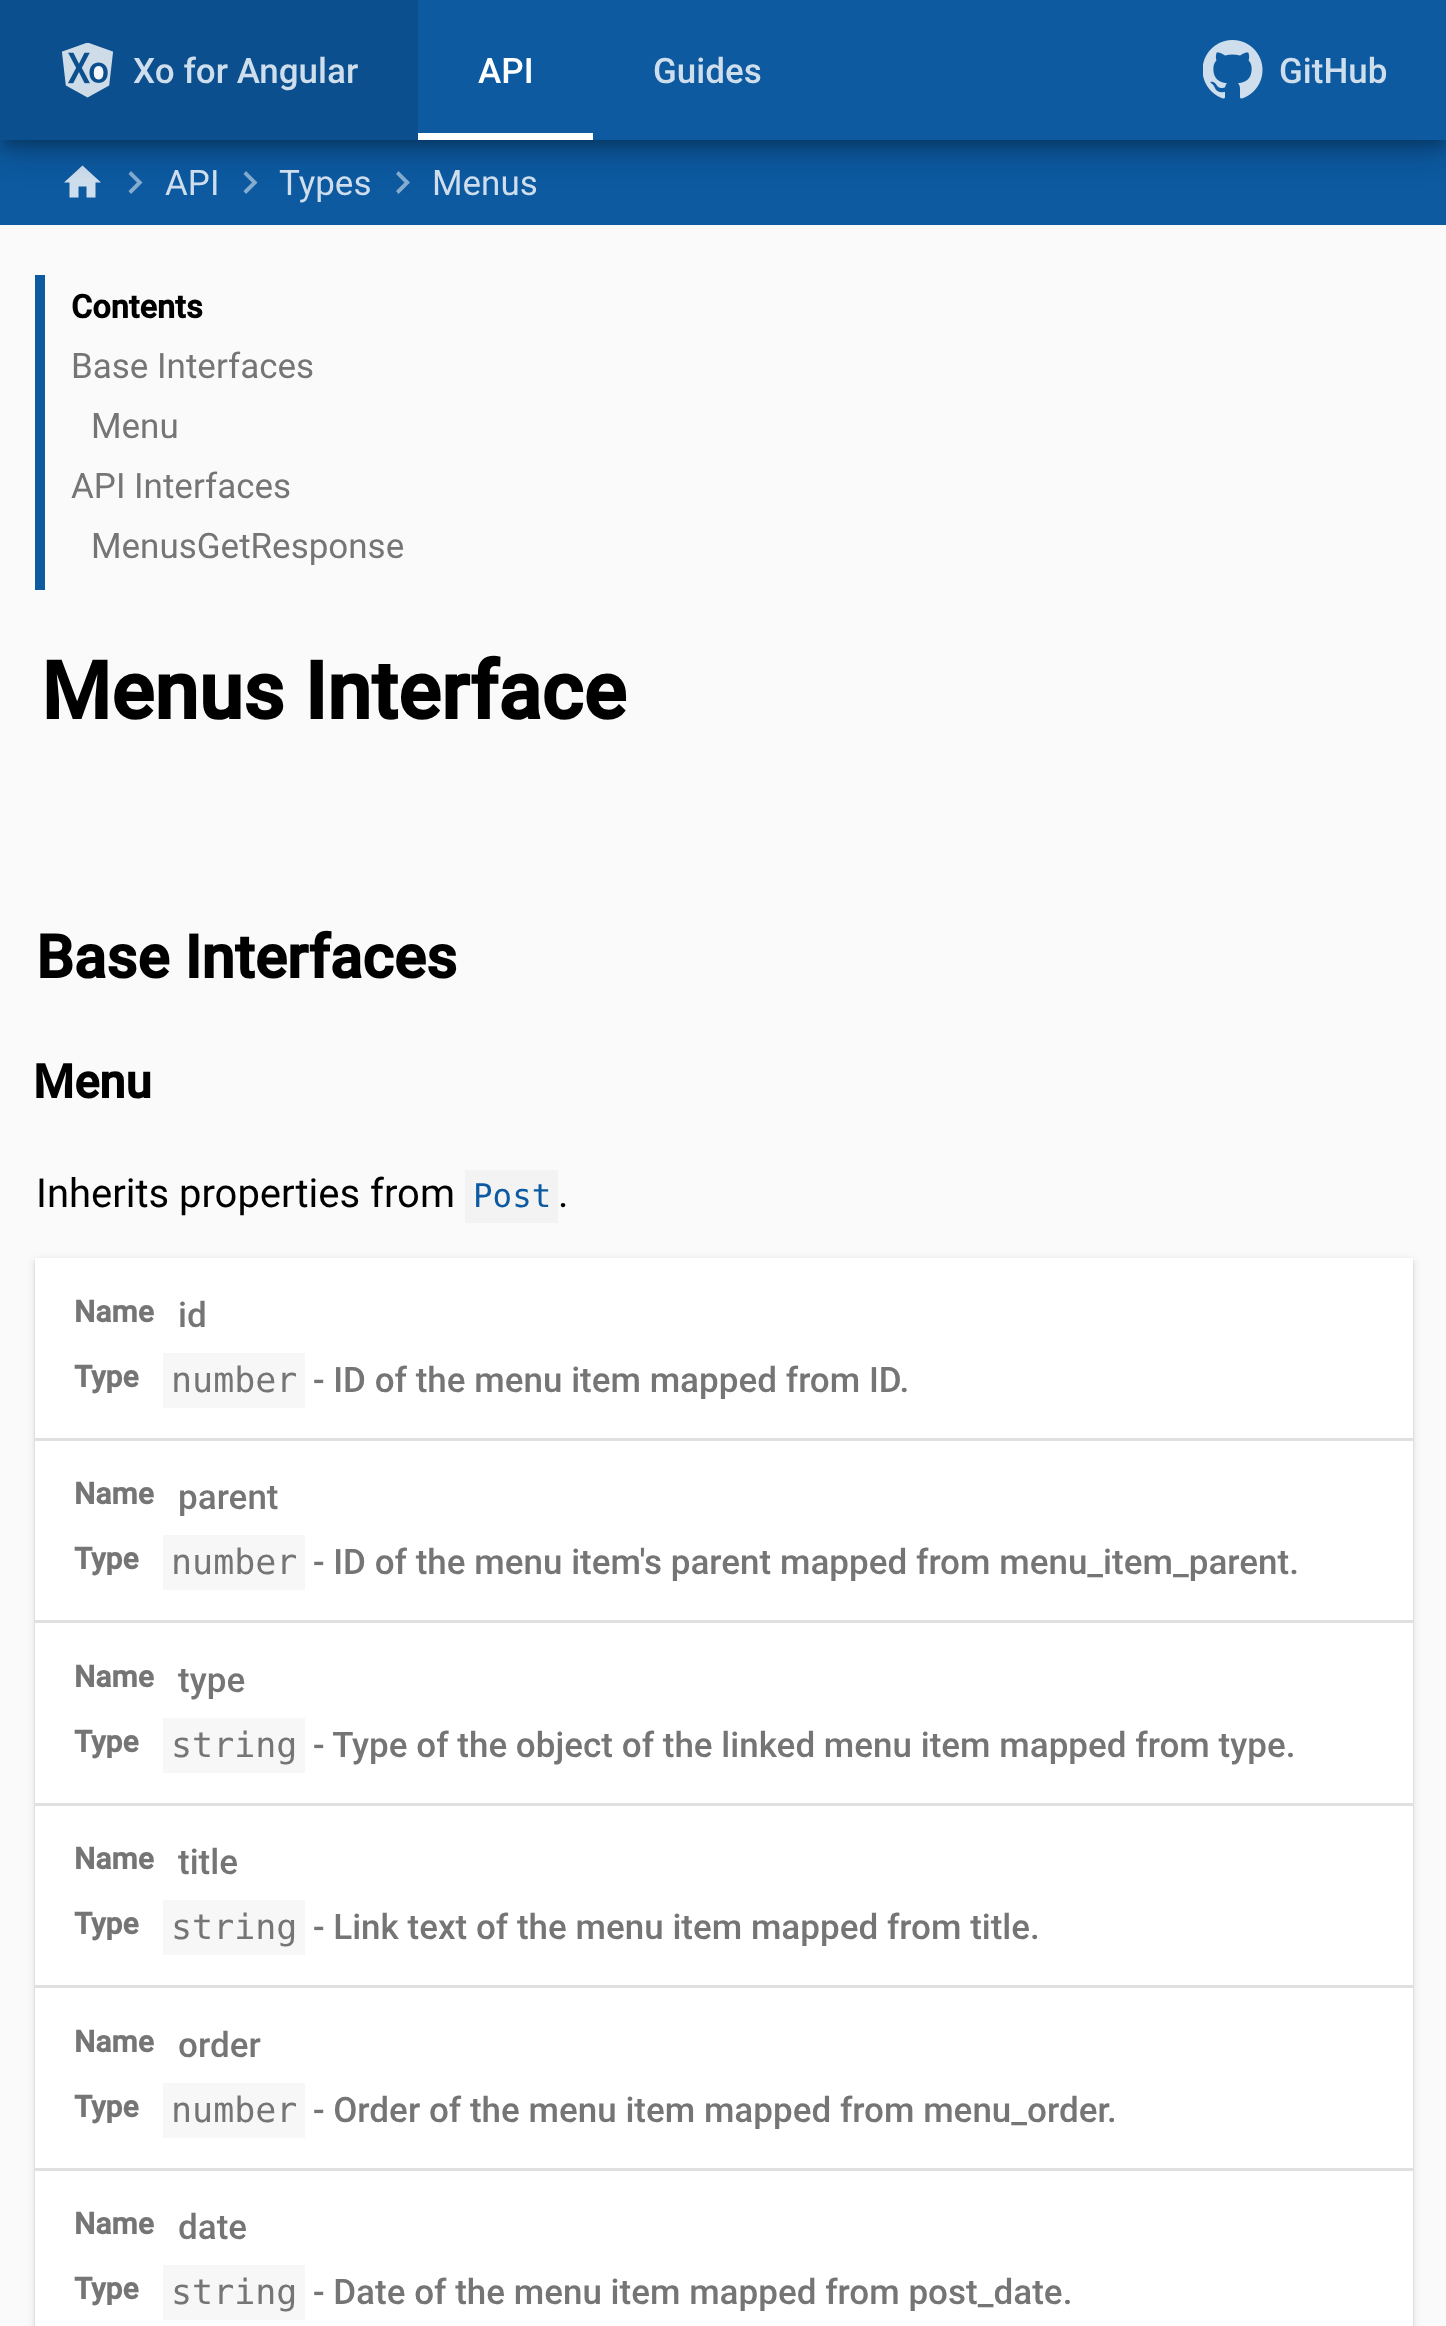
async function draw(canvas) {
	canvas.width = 1446;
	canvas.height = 2326;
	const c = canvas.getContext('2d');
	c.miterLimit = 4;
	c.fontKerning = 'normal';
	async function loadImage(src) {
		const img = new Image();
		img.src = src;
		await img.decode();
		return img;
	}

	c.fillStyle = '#fafafa';
	c.fillRect(0, 0, 1446, 2326);
	c.fillStyle = '#0d5aa1';
	c.fillRect(0, 140, 1446, 85);
	c.fillStyle = '#cfdeec';
	c.beginPath();
	c.moveTo(78.5, 197.5);
	c.lineTo(69.5, 197.5);
	c.lineTo(69.5, 182.5);
	c.lineTo(64, 182.5);
	c.lineTo(82.5, 165.5);
	c.lineTo(101, 182.5);
	c.lineTo(95.5, 182.5);
	c.lineTo(95.5, 197.5);
	c.lineTo(86.5, 197.5);
	c.lineTo(86.5, 186.5);
	c.lineTo(78.5, 186.5);
	c.closePath();
	c.fill();
	c.fillStyle = '#86add0';
	c.beginPath();
	c.moveTo(131, 171);
	c.lineTo(142.5, 182.5);
	c.lineTo(131, 194);
	c.lineTo(128.5, 191);
	c.lineTo(137, 182.5);
	c.lineTo(128.5, 174);
	c.closePath();
	c.fill();
	c.beginPath();
	c.moveTo(246, 171);
	c.lineTo(257.5, 182.5);
	c.lineTo(246, 194);
	c.lineTo(243.5, 191);
	c.lineTo(252, 182.5);
	c.lineTo(243.5, 174);
	c.closePath();
	c.fill();
	c.beginPath();
	c.moveTo(398.5, 171);
	c.lineTo(410, 182.5);
	c.lineTo(398.5, 194);
	c.lineTo(396, 191);
	c.lineTo(404.5, 182.5);
	c.lineTo(396, 174);
	c.closePath();
	c.fill();
	c.fillStyle = '#0000001f';
	c.filter = 'blur(22.5px)';
	c.beginPath();
	c.rect(0, 3, 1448, 140);
	c.fill();
	c.filter = 'none';
	c.fillStyle = '#00000024';
	c.filter = 'blur(12.5px)';
	c.beginPath();
	c.rect(0, 15, 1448, 140);
	c.fill();
	c.filter = 'none';
	c.fillStyle = '#00000033';
	c.filter = 'blur(6px)';
	c.beginPath();
	c.rect(3, 10, 1442, 135);
	c.fill();
	c.filter = 'none';
	c.fillStyle = '#0d5aa1';
	c.fillRect(418, 0, 1028, 140);
	c.fillStyle = '#0c4f8e';
	c.fillRect(0, 0, 418, 140);
	c.drawImage(await loadImage('img1.png'), 61, 43, 53, 55);
	c.font = '500 35px Roboto';
	c.fillStyle = '#cfdeec';
	c.fillText('Xo for Angular', 133, 83);
	c.fillStyle = '#fff';
	c.fillText('API', 478, 83);
	c.fillStyle = '#cfdeec';
	c.fillText('Guides', 653, 83);
	c.drawImage(await loadImage('img2.png'), 1203, 40, 60, 59);
	c.fillText('GitHub', 1279, 83);
	c.fillStyle = '#fff';
	c.fillRect(418, 133, 175, 7);
	c.font = '35px Roboto';
	c.fillStyle = '#cfdeec';
	for (const [text, x, y] of [
		['API', 165, 195],
		['Types', 279, 195],
		['Menus', 432, 195],
	]) {
		c.fillText(text, x, y);
	}
	c.fillStyle = '#0d5aa1';
	c.fillRect(35, 275, 10, 315);
	c.font = 'bold 32.5px Roboto';
	c.fillStyle = '#000';
	c.fillText('Contents', 71, 318);
	c.font = '35px Roboto';
	c.fillStyle = '#757575';
	for (const [text, x, y] of [
		['Base Interfaces', 71, 378],
		['Menu', 91, 438],
		['API Interfaces', 71, 498],
		['MenusGetResponse', 91, 558],
	]) {
		c.fillText(text, x, y);
	}
	c.font = 'bold 80px Roboto';
	c.fillStyle = '#000';
	c.fillText('Menus Interface', 41, 719);
	c.font = 'bold 60px Roboto';
	c.fillText('Base Interfaces', 36, 978);
	c.font = 'bold 47px Roboto';
	c.fillText('Menu', 33, 1098);
	c.font = '40px Roboto';
	c.fillText('Inherits properties from', 36, 1207);
	c.fillStyle = '#f3f3f3';
	c.fillRect(465, 1170, 93, 53);
	c.font = '32.5px DejaVu Sans Mono';
	c.fillStyle = '#0d5aa1';
	c.fillText('Post', 473, 1207);
	c.font = '40px Roboto';
	c.fillStyle = '#000';
	c.fillText('.', 558, 1207);
	c.fillStyle = '#0000001f';
	c.filter = 'blur(4px)';
	c.beginPath();
	c.rect(35, 1260, 1378, 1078);
	c.fill();
	c.filter = 'none';
	c.fillStyle = '#00000024';
	c.filter = 'blur(1px)';
	c.beginPath();
	c.rect(35, 1260, 1378, 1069);
	c.fill();
	c.filter = 'none';
	c.fillStyle = '#fff';
	c.fillRect(35, 1258, 1378, 1068);
	c.fillStyle = '#e0e0e0';
	c.fillRect(35, 1438, 1378, 3);
	c.font = 'bold 30px Roboto';
	c.fillStyle = '#757575';
	c.fillText('Name', 74, 1322);
	c.font = '500 35px Roboto';
	c.fillText('id', 178, 1327);
	c.font = 'bold 30px Roboto';
	c.fillText('Type', 74, 1387);
	c.fillStyle = '#f7f7f7';
	c.fillRect(163, 1353, 142, 55);
	c.font = '35px DejaVu Sans Mono';
	c.fillStyle = '#757575';
	c.fillText('number', 171, 1392);
	c.font = '500 35px Roboto';
	c.fillText('- ID of the menu item mapped from ID.', 313, 1392);
	c.fillStyle = '#e0e0e0';
	c.fillRect(35, 1620, 1378, 3);
	c.font = 'bold 30px Roboto';
	c.fillStyle = '#757575';
	c.fillText('Name', 74, 1504);
	c.font = '500 35px Roboto';
	c.fillText('parent', 178, 1509);
	c.font = 'bold 30px Roboto';
	c.fillText('Type', 74, 1569);
	c.fillStyle = '#f7f7f7';
	c.fillRect(163, 1535, 142, 55);
	c.font = '35px DejaVu Sans Mono';
	c.fillStyle = '#757575';
	c.fillText('number', 171, 1574);
	c.font = '500 35px Roboto';
	c.fillText('- ID of the menu item\'s parent mapped from menu_item_parent.', 313, 1574);
	c.fillStyle = '#e0e0e0';
	c.fillRect(35, 1803, 1378, 3);
	c.font = 'bold 30px Roboto';
	c.fillStyle = '#757575';
	c.fillText('Name', 74, 1687);
	c.font = '500 35px Roboto';
	c.fillText('type', 178, 1692);
	c.font = 'bold 30px Roboto';
	c.fillText('Type', 74, 1752);
	c.fillStyle = '#f7f7f7';
	c.fillRect(163, 1718, 142, 55);
	c.font = '35px DejaVu Sans Mono';
	c.fillStyle = '#757575';
	c.fillText('string', 171, 1757);
	c.font = '500 35px Roboto';
	c.fillText('- Type of the object of the linked menu item mapped from type.', 313, 1757);
	c.fillStyle = '#e0e0e0';
	c.fillRect(35, 1985, 1378, 3);
	c.font = 'bold 30px Roboto';
	c.fillStyle = '#757575';
	c.fillText('Name', 74, 1869);
	c.font = '500 35px Roboto';
	c.fillText('title', 178, 1874);
	c.font = 'bold 30px Roboto';
	c.fillText('Type', 74, 1934);
	c.fillStyle = '#f7f7f7';
	c.fillRect(163, 1900, 142, 55);
	c.font = '35px DejaVu Sans Mono';
	c.fillStyle = '#757575';
	c.fillText('string', 171, 1939);
	c.font = '500 35px Roboto';
	c.fillText('- Link text of the menu item mapped from title.', 313, 1939);
	c.fillStyle = '#e0e0e0';
	c.fillRect(35, 2168, 1378, 3);
	c.font = 'bold 30px Roboto';
	c.fillStyle = '#757575';
	c.fillText('Name', 74, 2052);
	c.font = '500 35px Roboto';
	c.fillText('order', 178, 2057);
	c.font = 'bold 30px Roboto';
	c.fillText('Type', 74, 2117);
	c.fillStyle = '#f7f7f7';
	c.fillRect(163, 2083, 142, 55);
	c.font = '35px DejaVu Sans Mono';
	c.fillStyle = '#757575';
	c.fillText('number', 171, 2122);
	c.font = '500 35px Roboto';
	c.fillText('- Order of the menu item mapped from menu_order.', 313, 2122);
	c.font = 'bold 30px Roboto';
	c.fillText('Name', 74, 2234);
	c.font = '500 35px Roboto';
	c.fillText('date', 178, 2239);
	c.font = 'bold 30px Roboto';
	c.fillText('Type', 74, 2299);
	c.fillStyle = '#f7f7f7';
	c.fillRect(163, 2265, 142, 55);
	c.font = '35px DejaVu Sans Mono';
	c.fillStyle = '#757575';
	c.fillText('string', 171, 2304);
	c.font = '500 35px Roboto';
	c.fillText('- Date of the menu item mapped from post_date.', 313, 2304);
}

draw(document.querySelector('canvas'));
